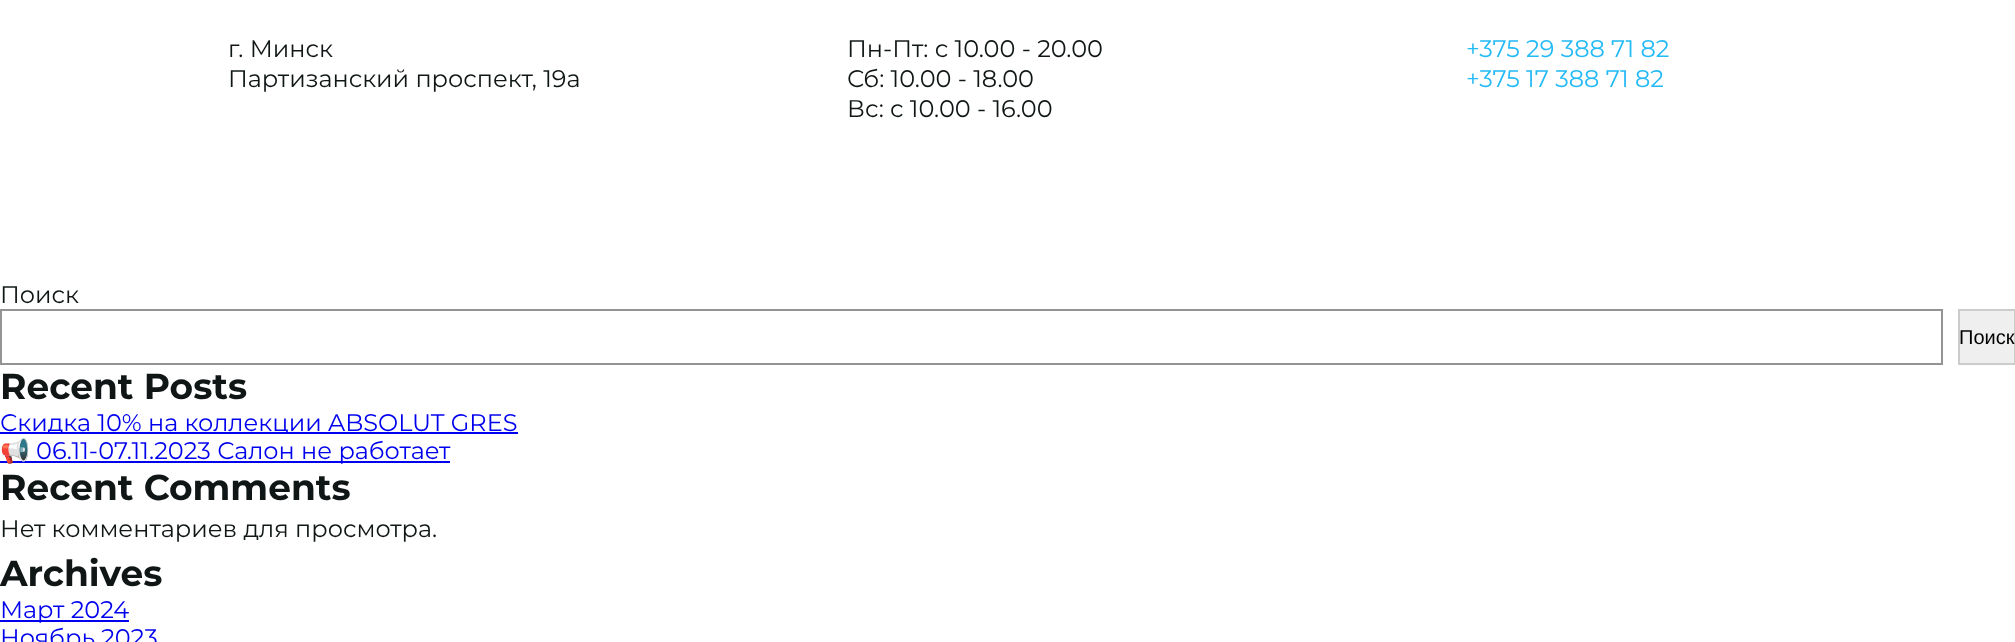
async function draw(canvas) {
	canvas.width = 2015;
	canvas.height = 642;
	const c = canvas.getContext('2d');
	c.miterLimit = 4;
	c.fontKerning = 'normal';

	c.fillStyle = '#fff';
	c.fillRect(0, 0, 2015, 642);
	c.font = '24px Montserrat';
	c.fillStyle = '#101616';
	for (const [text, x, y] of [
		['г. Минск', 228, 57],
		['Партизанский проспект, 19а', 228, 87],
		['Пн-Пт: с 10.00 - 20.00', 847, 57],
		['Сб: 10.00 - 18.00', 847, 87],
		['Вс: с 10.00 - 16.00', 847, 117],
	]) {
		c.fillText(text, x, y);
	}
	c.fillStyle = '#24baf5';
	c.fillText('+375 29 388 71 82', 1466, 57);
	c.fillText('+375 17 388 71 82', 1466, 87);
	c.fillStyle = '#101616';
	c.fillText('Поиск', 0, 303);
	c.strokeStyle = '#949494';
	c.lineWidth = 2;
	c.strokeRect(1, 310, 1941, 54);
	c.fillStyle = '#efefef';
	c.beginPath();
	c.rect(1959, 310, 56, 54);
	c.fill();
	c.strokeStyle = '#ccc';
	c.stroke();
	c.font = '20px Liberation Sans';
	c.fillStyle = '#000';
	c.fillText('Поиск', 1959, 344);
	c.font = 'bold 36px Montserrat';
	c.fillStyle = '#101616';
	c.fillText('Recent Posts', 0, 399);
	c.fillStyle = '#00e';
	c.fillRect(0, 432, 518, 2);
	c.font = '24px Montserrat';
	c.fillText('Скидка 10% на коллекции ABSOLUT GRES', 0, 431);
	c.fillRect(0, 461, 450, 2);
	c.font = '24px Noto Color Emoji';
	c.fillText('📢', 0, 459);
	c.font = '24px Montserrat';
	c.fillText('06.11-07.11.2023 Салон не работает', 36, 459);
	c.font = 'bold 36px Montserrat';
	c.fillStyle = '#101616';
	c.fillText('Recent Comments', 0, 500);
	c.font = '24px Montserrat';
	c.fillText('Нет комментариев для просмотра.', 0, 537);
	c.font = 'bold 36px Montserrat';
	c.fillText('Archives', 0, 586);
	c.fillStyle = '#00e';
	c.fillRect(0, 620, 129, 2);
	c.font = '24px Montserrat';
	c.fillText('Март 2024', 0, 618);
	c.fillText('Ноябрь 2023', 0, 646);
}

draw(document.querySelector('canvas'));
